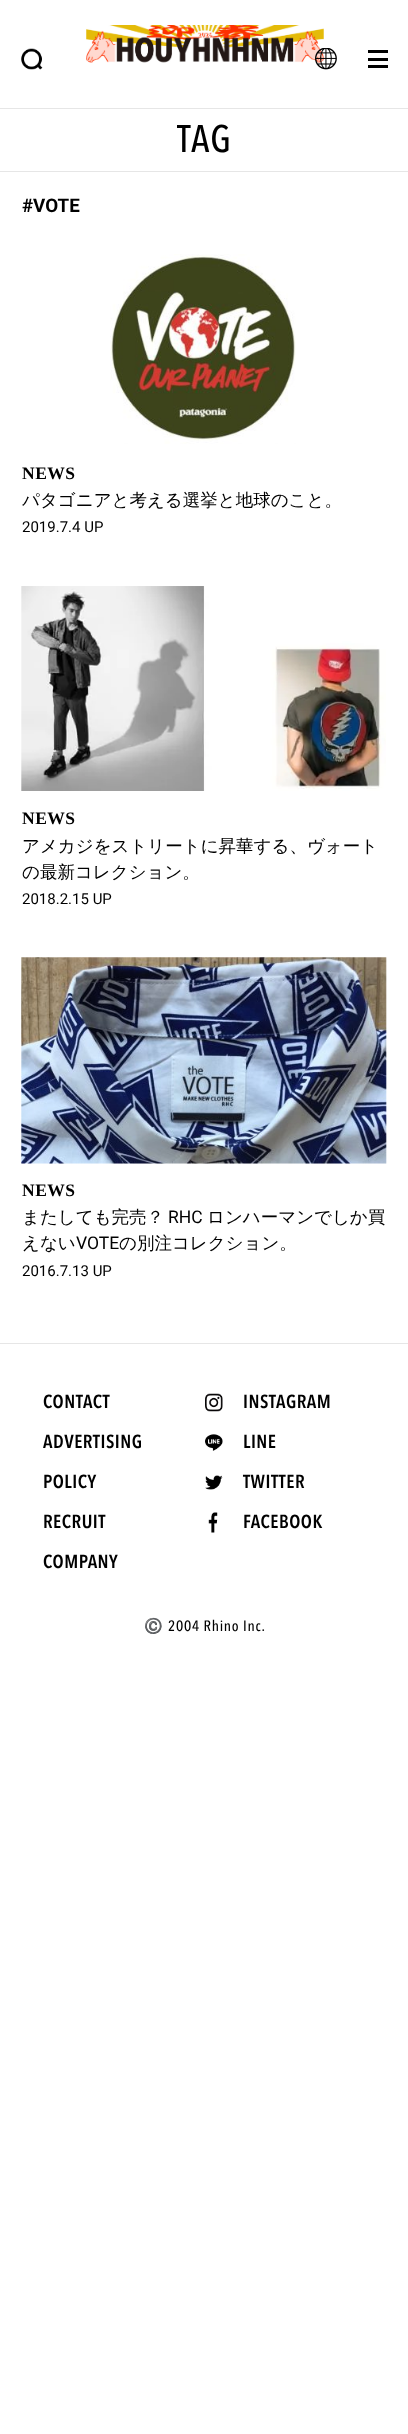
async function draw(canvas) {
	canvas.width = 408;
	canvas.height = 2434;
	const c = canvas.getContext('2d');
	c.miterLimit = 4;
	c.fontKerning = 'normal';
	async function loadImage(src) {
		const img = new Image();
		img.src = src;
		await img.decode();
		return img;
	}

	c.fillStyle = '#fff';
	c.fillRect(0, 0, 408, 2434);
	c.drawImage(await loadImage('img1.png'), 21, 48, 22, 22);
	c.drawImage(await loadImage('img2.png'), 86, 25, 238, 38);
	c.drawImage(await loadImage('img3.png'), 315, 48, 22, 22);
	for (const [x, y, w, h, color] of [
		[368, 50, 20, 3, '#000'],
		[368, 58, 20, 3, '#000'],
		[368, 65, 20, 3, '#000'],
		[0, 108, 408, 1, '#e6e6e6'],
		[0, 171, 408, 1, '#e6e6e6'],
	]) {
		c.fillStyle = color;
		c.fillRect(x, y, w, h);
	}
	c.letterSpacing = '1px';
	c.font = '500 38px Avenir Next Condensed';
	c.fillStyle = '#000';
	c.fillText('TAG', 177, 152);
	c.letterSpacing = '0px';
	c.font = 'bold 18.75px Roboto';
	c.fillText('#VOTE', 22, 212);
	c.drawImage(await loadImage('img4.png'), 110, 254, 186, 190);
	c.letterSpacing = '0.5px';
	c.font = 'bold 17.5px Liberation Serif';
	c.fillText('NEWS', 22, 479);
	c.letterSpacing = '0px';
	c.font = '500 17.5px WenQuanYi Zen Hei';
	c.fillText('パタゴニアと考える選挙と地球のこと。', 22, 506);
	c.font = '15px Roboto';
	c.fillText('2019.7.4 UP', 22, 532);
	c.drawImage(await loadImage('img5.png'), 21, 586, 365, 205);
	c.letterSpacing = '0.5px';
	c.font = 'bold 17.5px Liberation Serif';
	c.fillText('NEWS', 22, 824);
	c.letterSpacing = '0px';
	c.font = '500 17.5px WenQuanYi Zen Hei';
	c.fillText('アメカジをストリートに昇華する、ヴォート', 22, 852);
	c.fillText('の最新コレクション。', 22, 878);
	c.font = '15px Roboto';
	c.fillText('2018.2.15 UP', 22, 904);
	c.drawImage(await loadImage('img6.png'), 21, 957, 366, 207);
	c.letterSpacing = '0.5px';
	c.font = 'bold 17.5px Liberation Serif';
	c.fillText('NEWS', 22, 1196);
	c.letterSpacing = '0px';
	c.font = '500 17.5px WenQuanYi Zen Hei';
	c.fillText('またしても完売？', 22, 1223);
	c.font = '17.5px Roboto';
	c.fillText('RHC', 168, 1223);
	c.font = '500 17.5px WenQuanYi Zen Hei';
	c.fillText('ロンハーマンでしか買', 207, 1223);
	c.fillText('えない', 22, 1249);
	c.font = '17.5px Roboto';
	c.fillText('VOTE', 76, 1249);
	c.font = '500 17.5px WenQuanYi Zen Hei';
	c.fillText('の別注コレクション。', 119, 1249);
	c.font = '15px Roboto';
	c.fillText('2016.7.13 UP', 22, 1276);
	c.fillStyle = '#e6e6e6';
	c.fillRect(0, 1343, 408, 1);
	c.letterSpacing = '0.5px';
	c.font = '600 18.75px Avenir Next Condensed';
	c.fillStyle = '#000';
	for (const [text, x, y] of [
		['CONTACT', 43, 1408],
		['ADVERTISING', 43, 1448],
		['POLICY', 43, 1488],
		['RECRUIT', 43, 1528],
		['COMPANY', 43, 1568],
	]) {
		c.fillText(text, x, y);
	}
	c.drawImage(await loadImage('img7.png'), 205, 1393, 18, 19);
	c.fillText('INSTAGRAM', 243, 1408);
	c.drawImage(await loadImage('img8.png'), 205, 1434, 18, 17);
	c.fillText('LINE', 243, 1448);
	c.drawImage(await loadImage('img9.png'), 205, 1475, 18, 15);
	c.fillText('TWITTER', 243, 1488);
	c.drawImage(await loadImage('img10.png'), 208, 1512, 10, 21);
	c.fillText('FACEBOOK', 243, 1528);
	c.letterSpacing = '0.75px';
	c.font = '15px Noto Color Emoji';
	c.fillText('©️', 144, 1631);
	c.font = '500 15px Avenir Next Condensed';
	c.fillText('2004 Rhino Inc.', 168, 1631);
}

draw(document.querySelector('canvas'));
